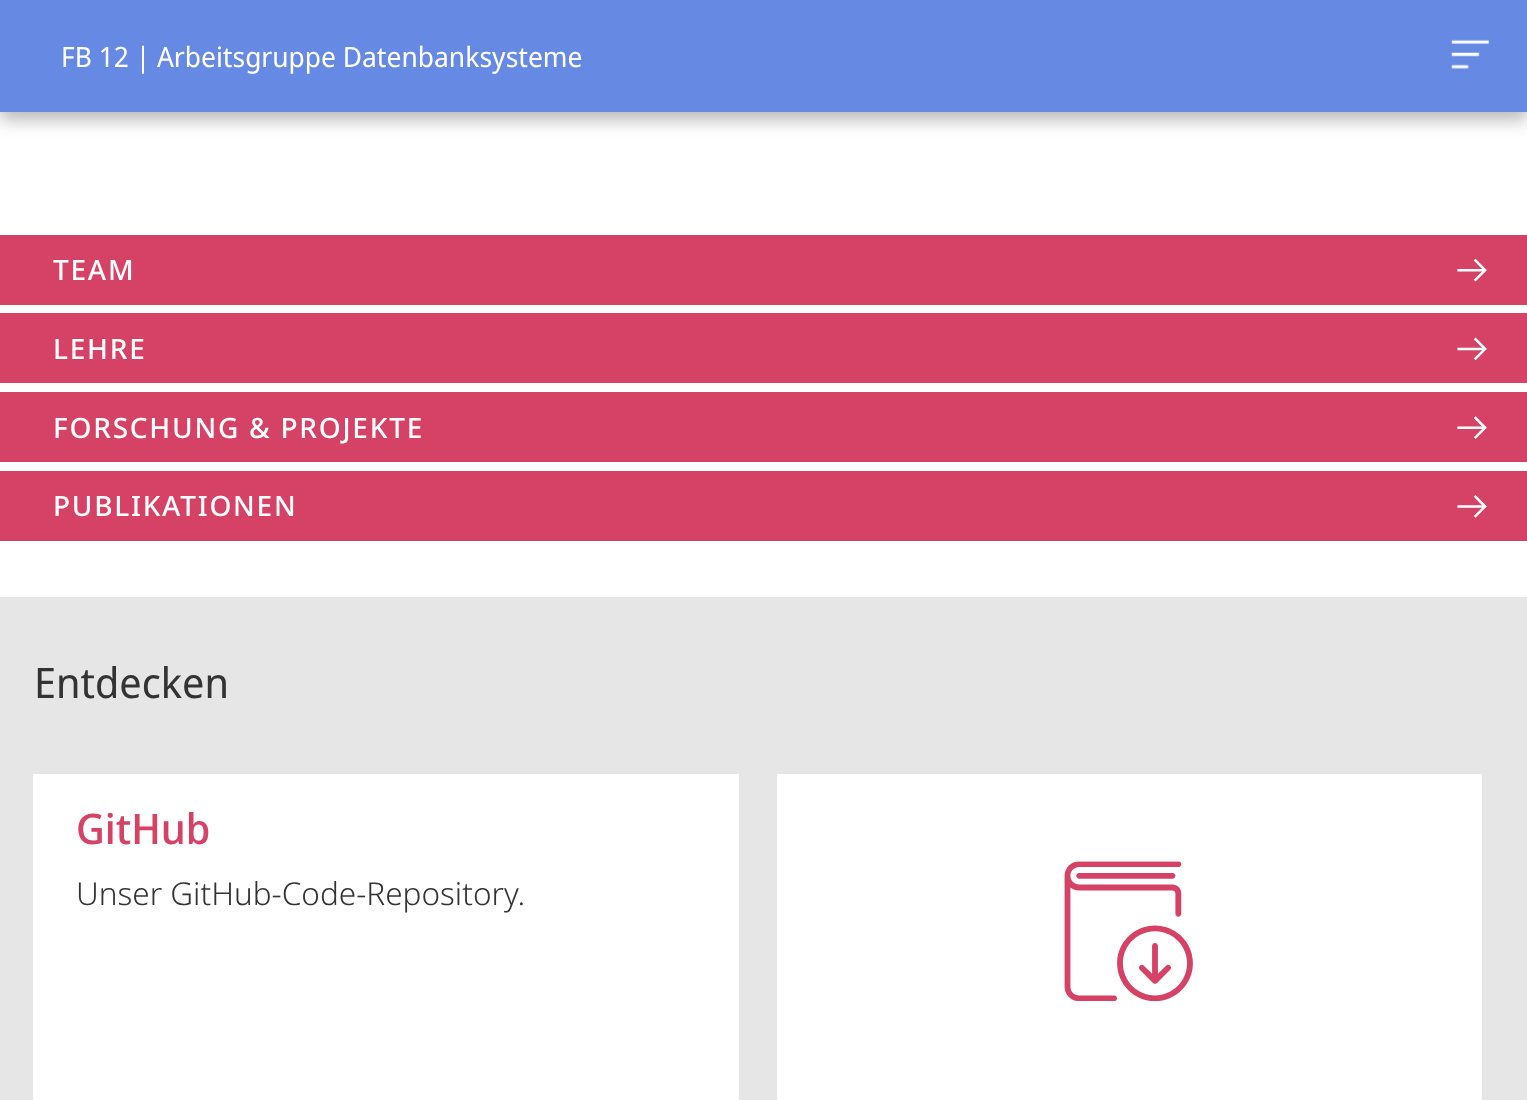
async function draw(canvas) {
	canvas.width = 1527;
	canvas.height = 1100;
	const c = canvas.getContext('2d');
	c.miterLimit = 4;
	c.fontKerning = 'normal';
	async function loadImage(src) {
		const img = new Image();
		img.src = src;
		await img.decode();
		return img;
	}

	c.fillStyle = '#fff';
	c.fillRect(0, 0, 1527, 1100);
	c.fillStyle = '#0000004d';
	c.filter = 'blur(9px)';
	c.beginPath();
	c.rect(0, 7, 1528, 112);
	c.fill();
	c.filter = 'none';
	c.fillStyle = '#6689e3';
	c.fillRect(0, 0, 1527, 112);
	c.font = '28px Noto Sans Display';
	c.fillStyle = '#fff';
	c.fillText('FB 12 | Arbeitsgruppe Datenbanksysteme', 61, 67);
	c.drawImage(await loadImage('img1.png'), 1451, 39, 39, 30);
	c.fillStyle = '#d64265';
	c.fillRect(0, 235, 1527, 70);
	c.letterSpacing = '1.75px';
	c.font = '500 28px Noto Sans';
	c.fillStyle = '#fff';
	c.fillText('TEAM', 53, 280);
	c.drawImage(await loadImage('img2.png'), 1457, 258, 30, 24);
	c.fillStyle = '#d64265';
	c.fillRect(0, 313, 1527, 70);
	c.fillStyle = '#fff';
	c.fillText('LEHRE', 53, 359);
	c.drawImage(await loadImage('img3.png'), 1457, 337, 30, 24);
	c.fillStyle = '#d64265';
	c.fillRect(0, 392, 1527, 70);
	c.fillStyle = '#fff';
	c.fillText('FORSCHUNG & PROJEKTE', 53, 438);
	c.drawImage(await loadImage('img4.png'), 1457, 416, 30, 23);
	c.fillStyle = '#d64265';
	c.fillRect(0, 471, 1527, 70);
	c.fillStyle = '#fff';
	c.fillText('PUBLIKATIONEN', 53, 516);
	c.drawImage(await loadImage('img5.png'), 1457, 495, 30, 23);
	c.fillStyle = '#e6e6e6';
	c.fillRect(0, 597, 1527, 503);
	c.letterSpacing = '0px';
	c.font = '42px Noto Sans Display';
	c.fillStyle = '#333';
	c.fillText('Entdecken', 34, 698);
	c.fillStyle = '#fff';
	c.fillRect(33, 774, 706, 326);
	c.font = '500 42px Noto Sans Display';
	c.fillStyle = '#d64265';
	c.fillText('GitHub', 76, 844);
	c.font = '300 31.5px Noto Sans';
	c.fillStyle = '#333';
	c.fillText('Unser GitHub-Code-Repository.', 76, 905);
	c.fillStyle = '#fff';
	c.fillRect(777, 774, 705, 326);
	c.drawImage(await loadImage('img6.png'), 1064, 861, 129, 140);
}

draw(document.querySelector('canvas'));
